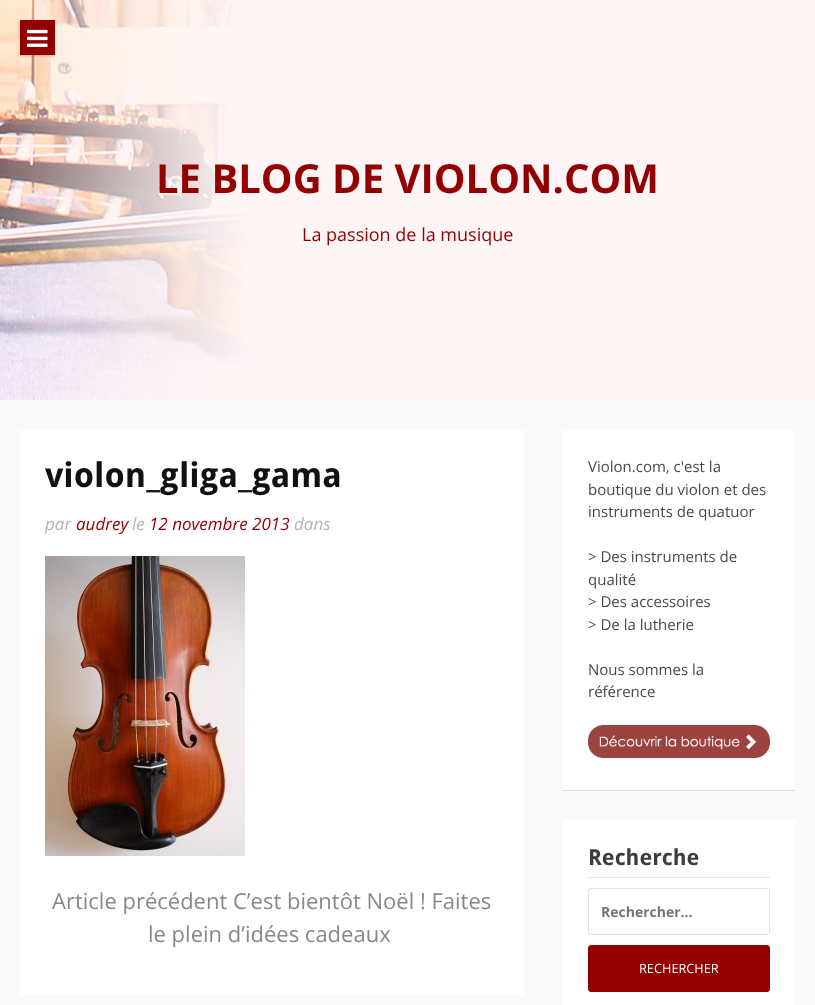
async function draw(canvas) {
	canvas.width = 815;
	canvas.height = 1005;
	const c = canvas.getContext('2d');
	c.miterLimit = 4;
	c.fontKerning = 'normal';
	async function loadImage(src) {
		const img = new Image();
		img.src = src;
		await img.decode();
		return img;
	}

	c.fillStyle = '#fafafa';
	c.fillRect(0, 0, 815, 1005);
	c.drawImage(await loadImage('img1.png'), 0, 0, 815, 400);
	c.fillStyle = '#00000033';
	c.filter = 'blur(1px)';
	c.beginPath();
	c.rect(20, 21, 35, 35);
	c.fill();
	c.filter = 'none';
	c.fillStyle = '#930000';
	c.fillRect(20, 20, 35, 35);
	c.drawImage(await loadImage('img2.png'), 27, 29, 21, 18);
	c.font = 'bold 40px Open Sans';
	c.fillText('LE BLOG DE VIOLON.COM', 156, 193);
	c.font = '18px Open Sans';
	c.fillText('La passion de la musique', 302, 241);
	c.fillStyle = '#fff';
	c.fillRect(20, 430, 504, 565);
	c.font = 'bold 34px Droid Sans';
	c.fillStyle = '#111';
	c.fillText('violon_gliga_gama', 45, 487);
	c.font = 'italic 17px Open Sans';
	c.fillStyle = '#b4b4b4';
	c.fillText('par', 45, 530);
	c.fillStyle = '#930000';
	c.fillText('audrey', 76, 530);
	c.fillStyle = '#b4b4b4';
	c.fillText('le', 132, 530);
	c.fillStyle = '#930000';
	c.fillText('12 novembre 2013', 149, 530);
	c.fillStyle = '#b4b4b4';
	c.fillText('dans', 294, 530);
	c.drawImage(await loadImage('img3.png'), 45, 556, 200, 300);
	c.font = '22px Open Sans';
	c.fillStyle = '#888';
	c.fillText('Article précédent C’est bientôt Noël ! Faites', 52, 909);
	c.fillText('le plein d’idées cadeaux', 148, 942);
	c.fillStyle = '#0000001a';
	c.filter = 'blur(0.5px)';
	c.beginPath();
	c.rect(563, 431, 232, 360);
	c.fill();
	c.filter = 'none';
	c.fillStyle = '#fff';
	c.fillRect(563, 430, 232, 360);
	c.font = '15px Open Sans';
	c.fillStyle = '#494949';
	for (const [text, x, y] of [
		['Violon.com, c\'est la', 588, 472],
		['boutique du violon et des', 588, 495],
		['instruments de quatuor', 588, 517],
		['> Des instruments de', 588, 562],
		['qualité', 588, 585],
		['> Des accessoires', 588, 607],
		['> De la lutherie', 588, 630],
		['Nous sommes la', 588, 675],
		['référence', 588, 697],
	]) {
		c.fillText(text, x, y);
	}
	c.drawImage(await loadImage('img4.png'), 588, 725, 182, 33);
	c.fillStyle = '#fff';
	c.fillRect(563, 820, 232, 185);
	c.fillStyle = '#e6e6e6';
	c.fillRect(588, 877, 182, 1);
	c.font = 'bold 22px Droid Sans';
	c.fillStyle = '#3d3d3d';
	c.fillText('Recherche', 588, 865);
	c.beginPath();
	c.roundRect(588.5, 888.5, 181, 46, 2.5);
	c.strokeStyle = '#e3e3e3';
	c.stroke();
	c.font = 'bold 14px Open Sans';
	c.fillStyle = '#757575';
	c.fillText('Rechercher…', 601, 917);
	c.fillStyle = '#930000';
	c.beginPath();
	c.roundRect(588.5, 945.5, 181, 46, 2.5);
	c.fill();
	c.strokeStyle = '#930000';
	c.stroke();
	c.font = '12.75px Open Sans';
	c.fillStyle = '#fff';
	c.fillText('RECHERCHER', 639, 973);
}

draw(document.querySelector('canvas'));
